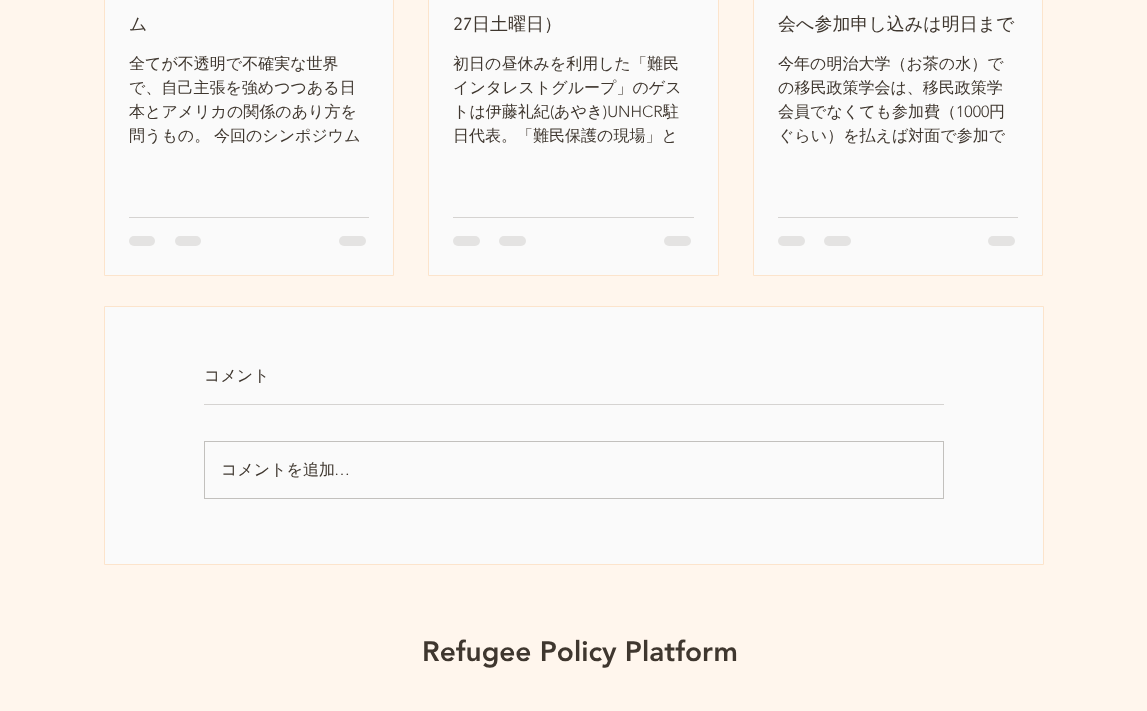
async function draw(canvas) {
	canvas.width = 1147;
	canvas.height = 711;
	const c = canvas.getContext('2d');
	c.miterLimit = 4;
	c.fontKerning = 'normal';

	c.fillStyle = '#fff6ed';
	c.fillRect(0, 0, 1147, 711);
	c.fillStyle = '#fafafa';
	c.beginPath();
	c.rect(104.5, -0.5, 289, 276);
	c.fill();
	c.strokeStyle = '#fce4cc';
	c.stroke();
	c.font = '500 18px WenQuanYi Zen Hei';
	c.fillStyle = '#3f372f';
	c.fillText('ム', 129, 30);
	c.font = '500 16px WenQuanYi Zen Hei';
	for (const [text, x, y] of [
		['全てが不透明で不確実な世界', 129, 69],
		['で、自己主張を強めつつある日', 129, 93],
		['本とアメリカの関係のあり方を', 129, 117],
	]) {
		c.fillText(text, x, y);
	}
	c.wordSpacing = '-1px';
	c.fillText('問うもの。 今回のシンポジウム', 129, 141);
	c.fillStyle = '#d5d3d1';
	c.fillRect(129, 217, 240, 1);
	c.fillStyle = '#e4e3e2';
	c.beginPath();
	c.roundRect(129, 236, 26, 10, 5);
	c.fill();
	c.beginPath();
	c.roundRect(175, 236, 26, 10, 5);
	c.fill();
	c.beginPath();
	c.roundRect(339, 236, 27, 10, 5);
	c.fill();
	c.fillStyle = '#fafafa';
	c.beginPath();
	c.rect(428.5, -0.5, 290, 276);
	c.fill();
	c.stroke();
	c.wordSpacing = '0px';
	c.font = '18px Caudex';
	c.fillStyle = '#3f372f';
	c.fillText('27', 453, 30);
	c.font = '500 18px WenQuanYi Zen Hei';
	c.fillText('日土曜日）', 472, 30);
	c.font = '500 16px WenQuanYi Zen Hei';
	for (const [text, x, y] of [
		['初日の昼休みを利用した「難民', 453, 69],
		['インタレストグループ」のゲス', 453, 93],
		['トは伊藤礼紀', 453, 117],
	]) {
		c.fillText(text, x, y);
	}
	c.font = '300 16px "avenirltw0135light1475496"';
	c.fillText('(', 550, 117);
	c.font = '500 16px WenQuanYi Zen Hei';
	c.fillText('あやき', 554, 117);
	c.font = '300 16px "avenirltw0135light1475496"';
	c.fillText(')UNHCR', 603, 117);
	c.font = '500 16px WenQuanYi Zen Hei';
	c.fillText('駐', 663, 117);
	c.fillText('日代表。「難民保護の現場」と', 453, 141);
	c.fillStyle = '#d5d3d1';
	c.fillRect(453, 217, 241, 1);
	c.fillStyle = '#e4e3e2';
	c.beginPath();
	c.roundRect(453, 236, 27, 10, 5);
	c.fill();
	c.beginPath();
	c.roundRect(499, 236, 27, 10, 5);
	c.fill();
	c.beginPath();
	c.roundRect(664, 236, 27, 10, 5);
	c.fill();
	c.fillStyle = '#fafafa';
	c.beginPath();
	c.rect(753.5, -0.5, 289, 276);
	c.fill();
	c.stroke();
	c.font = '500 18px WenQuanYi Zen Hei';
	c.fillStyle = '#3f372f';
	c.fillText('会へ参加申し込みは明日まで', 778, 30);
	c.font = '500 16px WenQuanYi Zen Hei';
	for (const [text, x, y] of [
		['今年の明治大学（お茶の水）で', 778, 69],
		['の移民政策学会は、移民政策学', 778, 93],
		['会員でなくても参加費（', 778, 117],
	]) {
		c.fillText(text, x, y);
	}
	c.font = '300 16px "avenirltw0135light1475496"';
	c.fillText('1000', 956, 117);
	c.font = '500 16px WenQuanYi Zen Hei';
	c.fillText('円', 989, 117);
	c.fillText('ぐらい）を払えば対面で参加で', 778, 141);
	c.fillStyle = '#d5d3d1';
	c.fillRect(778, 217, 240, 1);
	c.fillStyle = '#e4e3e2';
	c.beginPath();
	c.roundRect(778, 236, 27, 10, 5);
	c.fill();
	c.beginPath();
	c.roundRect(824, 236, 27, 10, 5);
	c.fill();
	c.beginPath();
	c.roundRect(988, 236, 27, 10, 5);
	c.fill();
	c.fillStyle = '#fafafa';
	c.beginPath();
	c.rect(104.5, 306.5, 939, 258);
	c.fill();
	c.stroke();
	c.fillStyle = '#3f372f';
	c.fillText('コメント', 204, 381);
	c.fillStyle = '#d5d3d1';
	c.fillRect(204, 404, 740, 1);
	c.strokeStyle = '#c2c0bd';
	c.strokeRect(204.5, 441.5, 739, 57);
	c.fillStyle = '#3f372f';
	c.fillText('コメントを追加', 221, 475);
	c.font = '300 16px "avenirltw0135light1475496"';
	c.fillText('…', 334, 475);
	c.font = '900 28px "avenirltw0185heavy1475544"';
	c.fillText('Refugee Policy Platform', 422, 661);
}

draw(document.querySelector('canvas'));
